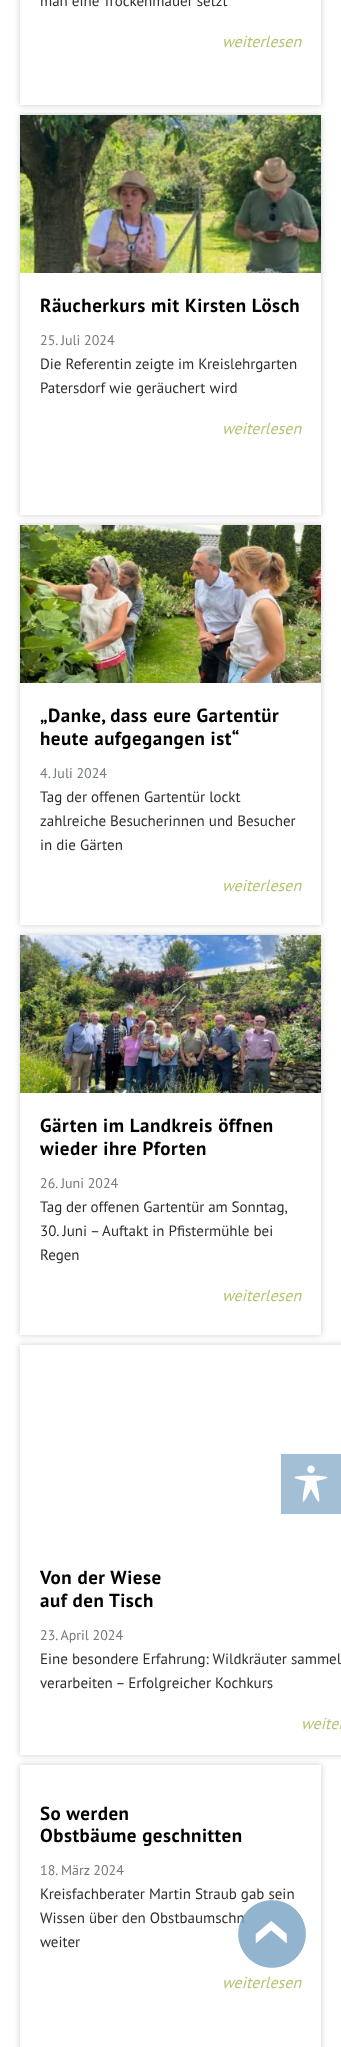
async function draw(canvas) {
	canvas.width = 341;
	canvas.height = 2047;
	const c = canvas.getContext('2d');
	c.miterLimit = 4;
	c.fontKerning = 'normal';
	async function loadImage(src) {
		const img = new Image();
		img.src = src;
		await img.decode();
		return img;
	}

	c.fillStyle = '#fff';
	c.fillRect(0, 0, 341, 2047);
	c.save();
	c.beginPath();
	c.moveTo(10, 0);
	c.lineTo(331, 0);
	c.lineTo(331, 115);
	c.lineTo(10, 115);
	c.closePath();
	c.moveTo(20, -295);
	c.lineTo(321, -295);
	c.lineTo(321, 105);
	c.lineTo(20, 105);
	c.closePath();
	c.clip('evenodd');
	c.fillStyle = '#00000033';
	c.filter = 'blur(3px)';
	c.beginPath();
	c.rect(20, -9, 301, 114);
	c.fill();
	c.filter = 'none';
	c.restore();
	c.font = '15px PT Sans';
	c.fillStyle = '#2e2e2e';
	c.fillText('man eine Trockenmauer setzt', 40, 6);
	c.font = 'italic 16px PT Sans';
	c.fillStyle = '#b6c574';
	c.fillText('weiterlesen', 222, 47);
	c.save();
	c.beginPath();
	c.moveTo(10, 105);
	c.lineTo(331, 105);
	c.lineTo(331, 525);
	c.lineTo(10, 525);
	c.closePath();
	c.moveTo(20, 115);
	c.lineTo(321, 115);
	c.lineTo(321, 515);
	c.lineTo(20, 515);
	c.closePath();
	c.clip('evenodd');
	c.fillStyle = '#00000033';
	c.filter = 'blur(3px)';
	c.beginPath();
	c.rect(20, 115, 301, 400);
	c.fill();
	c.filter = 'none';
	c.restore();
	c.drawImage(await loadImage('img1.png'), 20, 115, 301, 158);
	c.letterSpacing = '0.5px';
	c.font = 'bold 19px PT Sans';
	c.fillStyle = '#000';
	c.fillText('Räucherkurs mit Kirsten Lösch', 40, 312);
	c.letterSpacing = '0px';
	c.font = '14px PT Sans';
	c.fillStyle = '#737b7e';
	c.fillText('25. Juli 2024', 40, 345);
	c.font = '15px PT Sans';
	c.fillStyle = '#2e2e2e';
	c.fillText('Die Referentin zeigte im Kreislehrgarten', 40, 369);
	c.fillText('Patersdorf wie geräuchert wird', 40, 393);
	c.font = 'italic 16px PT Sans';
	c.fillStyle = '#b6c574';
	c.fillText('weiterlesen', 222, 434);
	c.save();
	c.beginPath();
	c.moveTo(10, 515);
	c.lineTo(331, 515);
	c.lineTo(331, 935);
	c.lineTo(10, 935);
	c.closePath();
	c.moveTo(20, 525);
	c.lineTo(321, 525);
	c.lineTo(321, 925);
	c.lineTo(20, 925);
	c.closePath();
	c.clip('evenodd');
	c.fillStyle = '#00000033';
	c.filter = 'blur(3px)';
	c.beginPath();
	c.rect(20, 525, 301, 400);
	c.fill();
	c.filter = 'none';
	c.restore();
	c.drawImage(await loadImage('img2.png'), 20, 525, 301, 158);
	c.letterSpacing = '0.5px';
	c.font = 'bold 19px PT Sans';
	c.fillStyle = '#000';
	c.fillText('„Danke, dass eure Gartentür', 40, 722);
	c.fillText('heute aufgegangen ist“', 40, 745);
	c.letterSpacing = '0px';
	c.font = '14px PT Sans';
	c.fillStyle = '#737b7e';
	c.fillText('4. Juli 2024', 40, 778);
	c.font = '15px PT Sans';
	c.fillStyle = '#2e2e2e';
	for (const [text, x, y] of [
		['Tag der offenen Gartentür lockt', 40, 802],
		['zahlreiche Besucherinnen und Besucher', 40, 826],
		['in die Gärten', 40, 850],
	]) {
		c.fillText(text, x, y);
	}
	c.font = 'italic 16px PT Sans';
	c.fillStyle = '#b6c574';
	c.fillText('weiterlesen', 222, 891);
	c.save();
	c.beginPath();
	c.moveTo(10, 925);
	c.lineTo(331, 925);
	c.lineTo(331, 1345);
	c.lineTo(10, 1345);
	c.closePath();
	c.moveTo(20, 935);
	c.lineTo(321, 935);
	c.lineTo(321, 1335);
	c.lineTo(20, 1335);
	c.closePath();
	c.clip('evenodd');
	c.fillStyle = '#00000033';
	c.filter = 'blur(3px)';
	c.beginPath();
	c.rect(20, 935, 301, 400);
	c.fill();
	c.filter = 'none';
	c.restore();
	c.drawImage(await loadImage('img3.png'), 20, 935, 301, 158);
	c.letterSpacing = '0.5px';
	c.font = 'bold 19px PT Sans';
	c.fillStyle = '#000';
	c.fillText('Gärten im Landkreis öffnen', 40, 1132);
	c.fillText('wieder ihre Pforten', 40, 1155);
	c.letterSpacing = '0px';
	c.font = '14px PT Sans';
	c.fillStyle = '#737b7e';
	c.fillText('26. Juni 2024', 40, 1188);
	c.wordSpacing = '-0.25px';
	c.font = '15px PT Sans';
	c.fillStyle = '#2e2e2e';
	c.fillText('Tag der offenen Gartentür am Sonntag,', 40, 1212);
	c.wordSpacing = '0px';
	c.fillText('30. Juni – Auftakt in Pfistermühle bei', 40, 1236);
	c.fillText('Regen', 40, 1260);
	c.font = 'italic 16px PT Sans';
	c.fillStyle = '#b6c574';
	c.fillText('weiterlesen', 222, 1301);
	c.save();
	c.beginPath();
	c.moveTo(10, 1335);
	c.lineTo(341, 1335);
	c.lineTo(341, 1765);
	c.lineTo(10, 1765);
	c.closePath();
	c.moveTo(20, 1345);
	c.lineTo(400, 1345);
	c.lineTo(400, 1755);
	c.lineTo(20, 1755);
	c.closePath();
	c.clip('evenodd');
	c.fillStyle = '#00000033';
	c.filter = 'blur(3px)';
	c.beginPath();
	c.rect(20, 1345, 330, 410);
	c.fill();
	c.filter = 'none';
	c.restore();
	c.letterSpacing = '0.5px';
	c.font = 'bold 19px PT Sans';
	c.fillStyle = '#000';
	c.fillText('Von der Wiese', 40, 1584);
	c.fillText('auf den Tisch', 40, 1607);
	c.letterSpacing = '0px';
	c.font = '14px PT Sans';
	c.fillStyle = '#737b7e';
	c.fillText('23. April 2024', 40, 1640);
	c.font = '15px PT Sans';
	c.fillStyle = '#2e2e2e';
	c.fillText('Eine besondere Erfahrung: Wildkräuter sammel', 40, 1664);
	c.fillText('verarbeiten – Erfolgreicher Kochkurs', 40, 1688);
	c.font = 'italic 16px PT Sans';
	c.fillStyle = '#b6c574';
	c.fillText('weiter', 301, 1729);
	c.save();
	c.beginPath();
	c.moveTo(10, 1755);
	c.lineTo(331, 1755);
	c.lineTo(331, 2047);
	c.lineTo(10, 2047);
	c.closePath();
	c.moveTo(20, 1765);
	c.lineTo(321, 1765);
	c.lineTo(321, 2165);
	c.lineTo(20, 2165);
	c.closePath();
	c.clip('evenodd');
	c.fillStyle = '#00000033';
	c.filter = 'blur(3px)';
	c.beginPath();
	c.rect(20, 1765, 301, 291);
	c.fill();
	c.filter = 'none';
	c.restore();
	c.letterSpacing = '0.5px';
	c.font = 'bold 19px PT Sans';
	c.fillStyle = '#000';
	c.fillText('So werden', 40, 1820);
	c.fillText('Obstbäume geschnitten', 40, 1842);
	c.letterSpacing = '0px';
	c.font = '14px PT Sans';
	c.fillStyle = '#737b7e';
	c.fillText('18. März 2024', 40, 1875);
	c.font = '15px PT Sans';
	c.fillStyle = '#2e2e2e';
	for (const [text, x, y] of [
		['Kreisfachberater Martin Straub gab sein', 40, 1899],
		['Wissen über den Obstbaumschn', 40, 1923],
		['weiter', 40, 1947],
	]) {
		c.fillText(text, x, y);
	}
	c.font = 'italic 16px PT Sans';
	c.fillStyle = '#b6c574';
	c.fillText('weiterlesen', 222, 1988);
	c.fillStyle = '#a2bfd5';
	c.fillRect(281, 1454, 60, 60);
	c.drawImage(await loadImage('img4.png'), 294, 1465, 34, 37);
	c.drawImage(await loadImage('img5.png'), 238, 1900, 68, 68);
}

draw(document.querySelector('canvas'));
